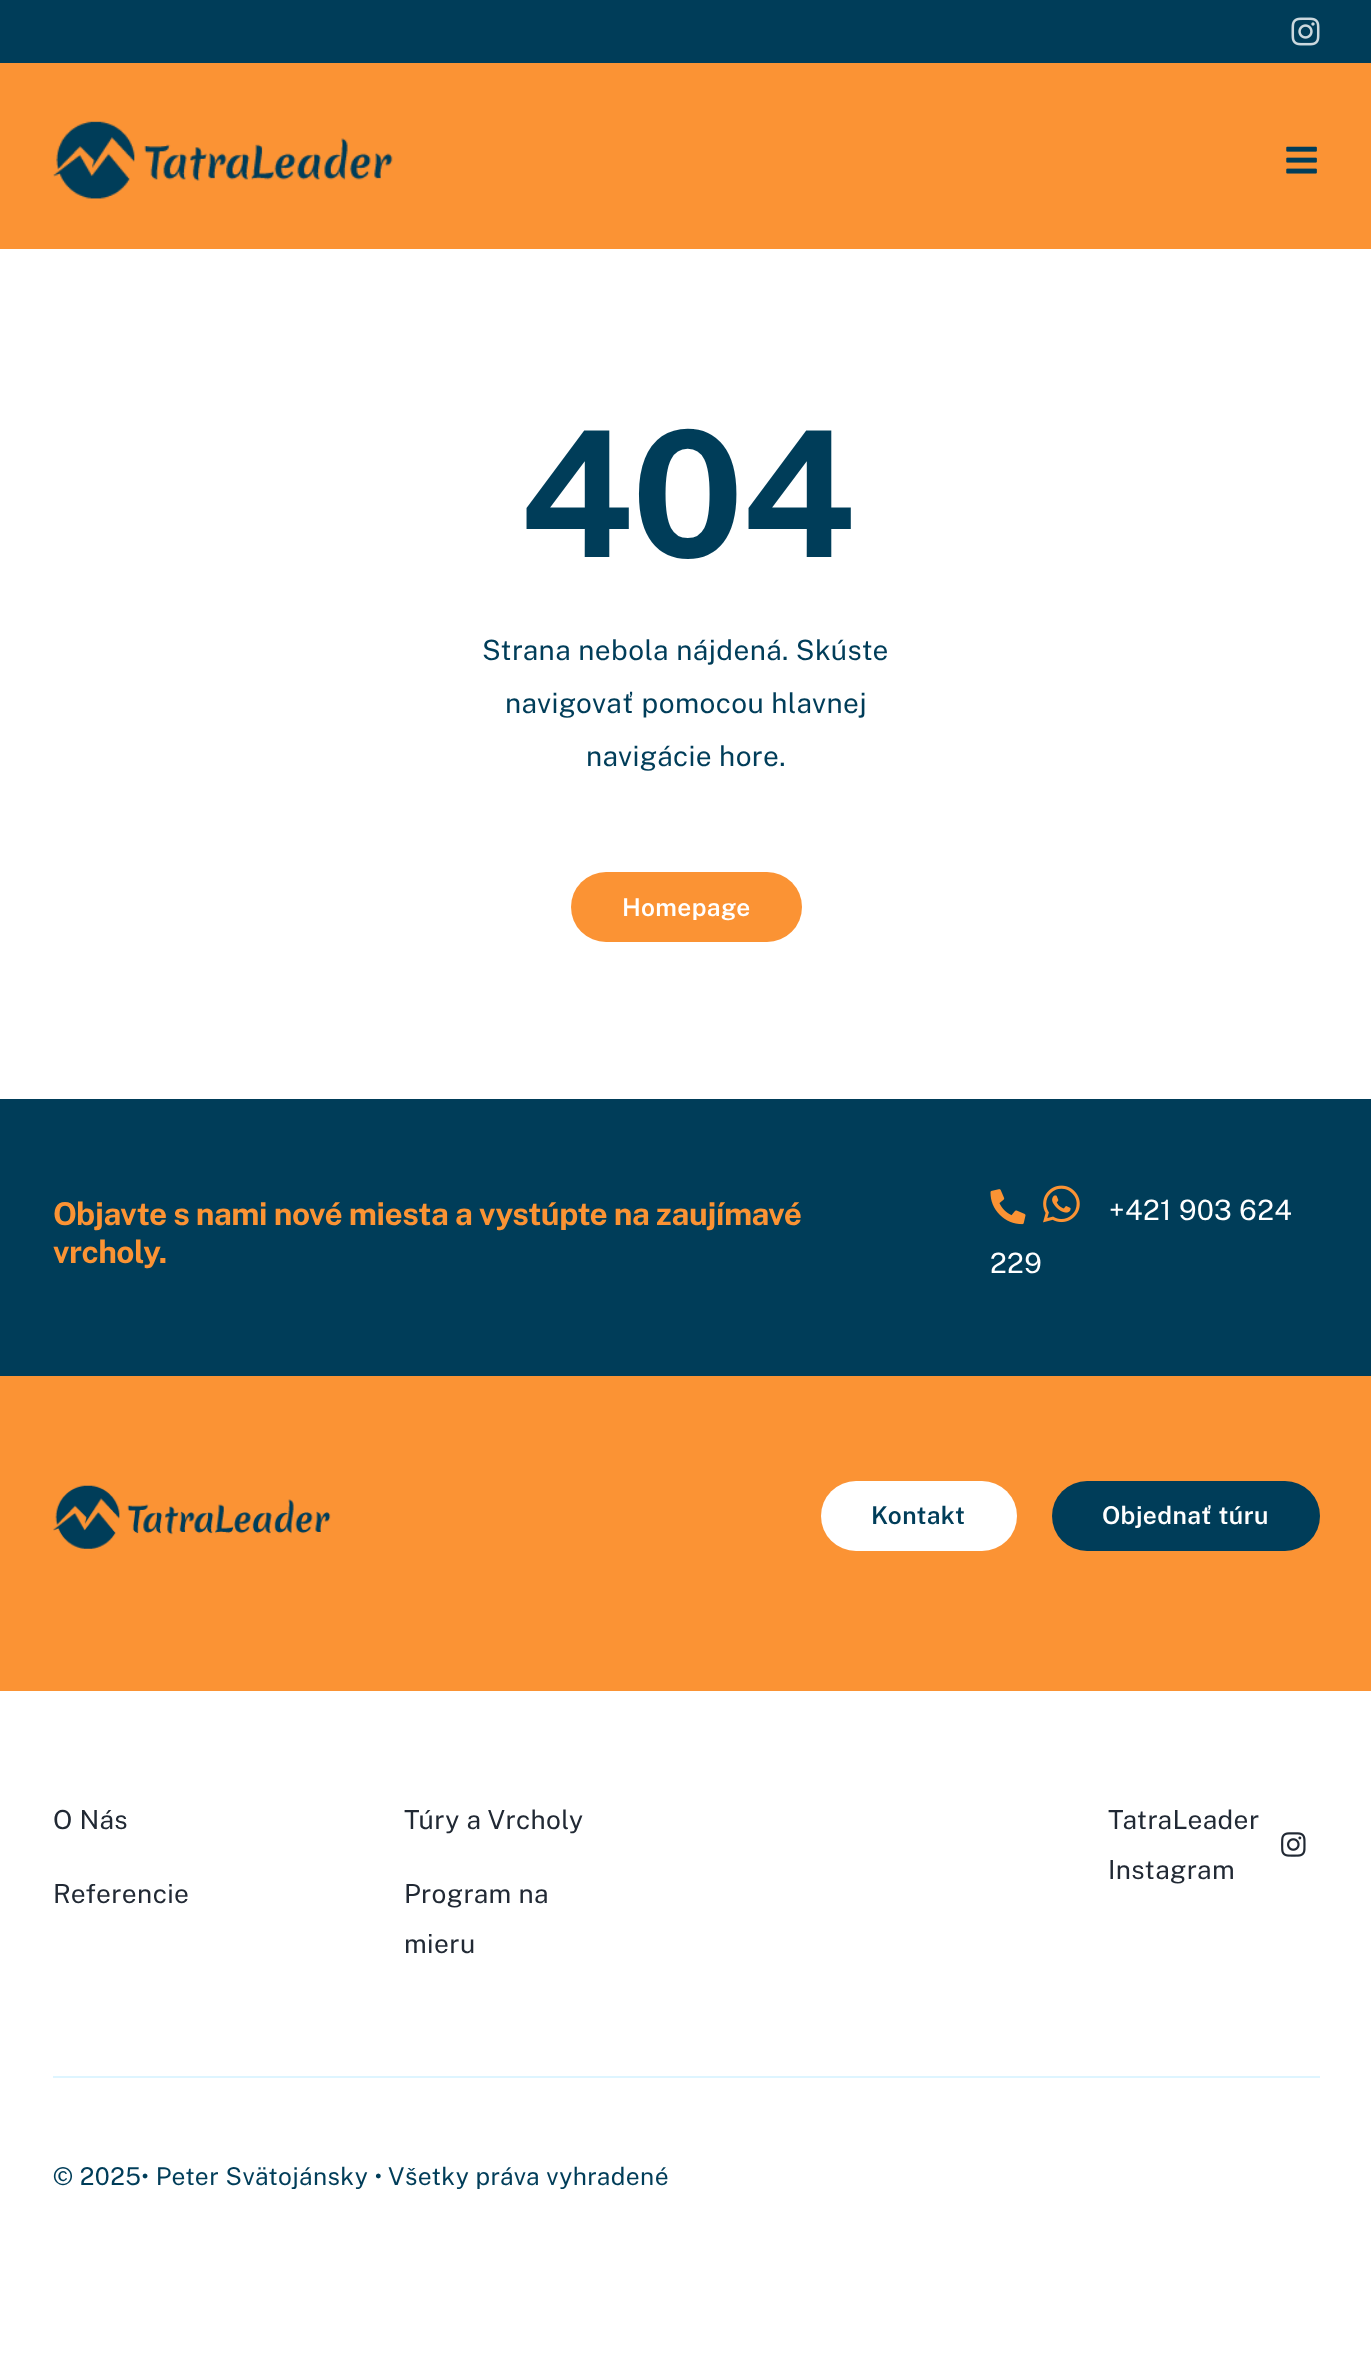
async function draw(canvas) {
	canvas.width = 1371;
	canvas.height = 2360;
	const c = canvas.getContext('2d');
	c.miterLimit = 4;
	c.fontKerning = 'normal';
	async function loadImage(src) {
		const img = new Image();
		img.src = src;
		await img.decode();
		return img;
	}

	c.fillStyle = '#fff';
	c.fillRect(0, 0, 1371, 2360);
	c.fillStyle = '#003d59';
	c.fillRect(0, 0, 1371, 63);
	c.drawImage(await loadImage('img1.png'), 1291, 17, 29, 29);
	c.fillStyle = '#fb9334';
	c.fillRect(0, 63, 1371, 186);
	c.drawImage(await loadImage('img2.png'), 53, 121, 340, 78);
	c.drawImage(await loadImage('img3.png'), 1286, 146, 31, 28);
	c.letterSpacing = '-2.5px';
	c.font = 'bold 175px Public Sans';
	c.fillStyle = '#003d59';
	c.fillText('404', 519, 557);
	c.letterSpacing = '0.4px';
	c.font = '28px Public Sans';
	for (const [text, x, y] of [
		['Strana nebola nájdená. Skúste', 482, 660],
		['navigovať pomocou hlavnej', 505, 713],
		['navigácie hore.', 586, 766],
	]) {
		c.fillText(text, x, y);
	}
	c.fillStyle = '#fb9334';
	c.beginPath();
	c.roundRect(571, 872, 231, 70, 35);
	c.fill();
	c.font = '600 24.5px Public Sans';
	c.fillStyle = '#fff';
	c.fillText('Homepage', 622, 916);
	c.fillStyle = '#003d59';
	c.fillRect(0, 1099, 1371, 277);
	c.letterSpacing = '-0.45px';
	c.font = 'bold 31.5px Public Sans';
	c.fillStyle = '#fb9334';
	c.fillText('Objavte s nami nové miesta a vystúpte na zaujímavé', 53, 1225);
	c.fillText('vrcholy.', 53, 1263);
	c.drawImage(await loadImage('img4.png'), 990, 1189, 36, 36);
	c.drawImage(await loadImage('img5.png'), 1043, 1185, 37, 38);
	c.letterSpacing = '0.4px';
	c.font = '28px Public Sans';
	c.fillStyle = '#fff';
	c.fillText('+421 903 624', 1109, 1220);
	c.fillText('229', 990, 1273);
	c.fillStyle = '#fb9334';
	c.fillRect(0, 1376, 1371, 315);
	c.drawImage(await loadImage('img6.png'), 53, 1485, 278, 64);
	c.fillStyle = '#fff';
	c.beginPath();
	c.roundRect(821, 1481, 196, 70, 35);
	c.fill();
	c.font = '600 24.5px Public Sans';
	c.fillStyle = '#003d59';
	c.fillText('Kontakt', 871, 1524);
	c.beginPath();
	c.roundRect(1052, 1481, 268, 70, 35);
	c.fill();
	c.fillStyle = '#fff';
	c.fillText('Objednať túru', 1102, 1524);
	c.font = '26.25px Public Sans';
	c.fillStyle = '#212934';
	for (const [text, x, y] of [
		['O Nás', 53, 1829],
		['Referencie', 53, 1903],
		['Túry a Vrcholy', 404, 1829],
		['Program na', 404, 1903],
		['mieru', 404, 1953],
		['TatraLeader', 1108, 1829],
		['Instagram', 1108, 1879],
	]) {
		c.fillText(text, x, y);
	}
	c.drawImage(await loadImage('img7.png'), 1281, 1832, 25, 25);
	c.fillStyle = '#def5ff';
	c.fillRect(53, 2076, 1267, 2);
	c.font = '24.5px Public Sans';
	c.fillStyle = '#003d59';
	c.fillText('© 2025• Peter Svätojánsky •', 53, 2185);
	c.fillText('Všetky práva vyhradené', 388, 2185);
}

draw(document.querySelector('canvas'));
